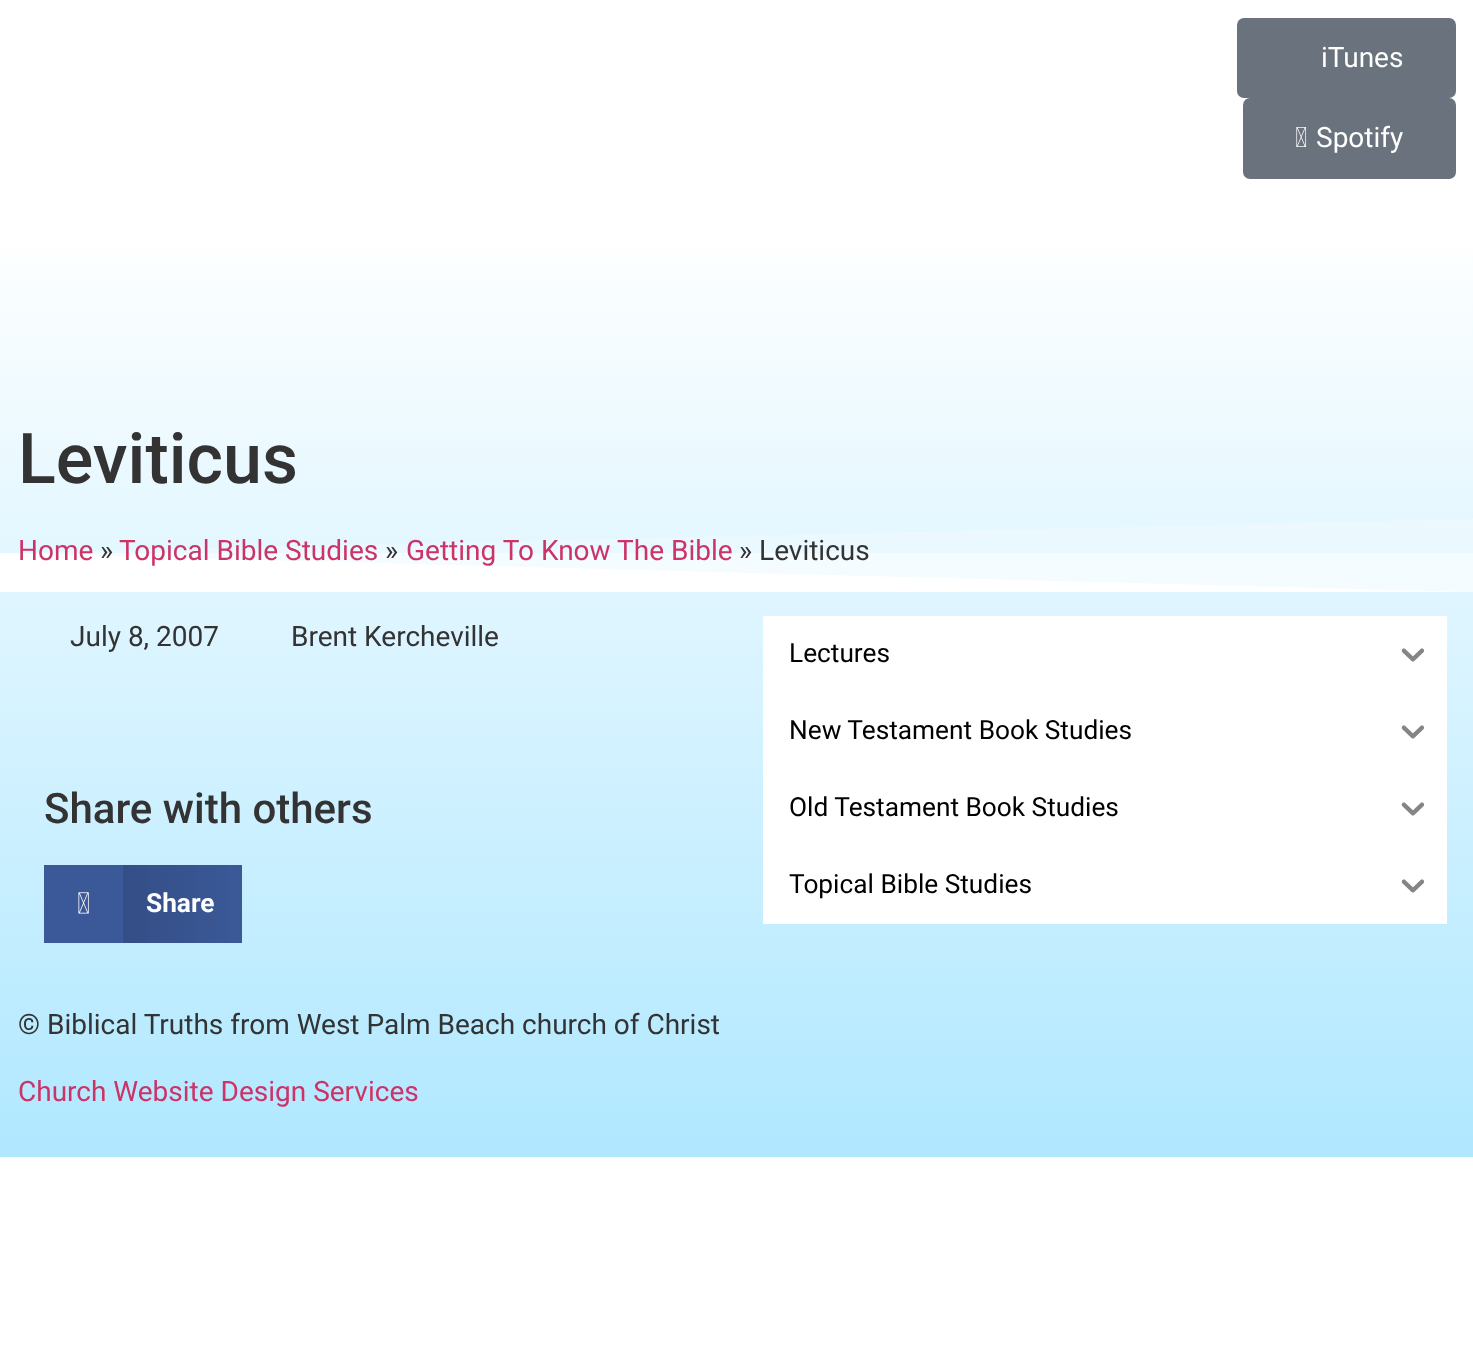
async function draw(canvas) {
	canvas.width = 1473;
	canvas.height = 1363;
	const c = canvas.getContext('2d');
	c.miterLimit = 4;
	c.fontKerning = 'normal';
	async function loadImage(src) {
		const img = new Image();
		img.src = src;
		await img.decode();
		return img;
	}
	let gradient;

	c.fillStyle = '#fff';
	c.fillRect(0, 0, 1473, 1363);
	gradient = c.createLinearGradient(737, 0, 737, 1157);
	gradient.addColorStop(0.19, '#fff');
	gradient.addColorStop(1, '#b0e8ff');
	c.fillStyle = gradient;
	c.fillRect(0, 249, 1473, 908);
	gradient = c.createLinearGradient(737, 0, 737, 1157);
	gradient.addColorStop(0.19, '#fff');
	gradient.addColorStop(1, '#d8f4ff');
	c.fillStyle = gradient;
	c.fillRect(1, 553, 1472, 39);
	c.fillStyle = '#69727d';
	c.beginPath();
	c.roundRect(1237, 18, 219, 80, 7);
	c.fill();
	c.font = '28px Roboto';
	c.fillStyle = '#fff';
	c.fillText('iTunes', 1321, 67);
	c.fillStyle = '#69727d';
	c.beginPath();
	c.roundRect(1243, 98, 213, 81, 7);
	c.fill();
	c.drawImage(await loadImage('img1.png'), 1296, 127, 11, 20);
	c.fillStyle = '#fff';
	c.fillText('Spotify', 1316, 147);
	c.font = '500 70px Roboto';
	c.fillStyle = '#333';
	c.fillText('Leviticus', 18, 483);
	c.fillStyle = '#fff';
	c.beginPath();
	c.moveTo(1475, 592);
	c.lineTo(-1, 592);
	c.lineTo(-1, 553);
	c.closePath();
	c.fill();
	c.fillStyle = '#ffffff40';
	c.beginPath();
	c.moveTo(-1, 592);
	c.lineTo(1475, 592);
	c.lineTo(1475, 519);
	c.lineTo(-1, 553);
	c.closePath();
	c.fill();
	c.font = '28px Roboto';
	c.fillStyle = '#c36';
	c.fillText('Home', 18, 560);
	c.fillStyle = '#333';
	c.fillText('»', 100, 560);
	c.fillStyle = '#c36';
	c.fillText('Topical Bible Studies', 119, 560);
	c.fillStyle = '#333';
	c.fillText('»', 385, 560);
	c.fillStyle = '#c36';
	c.fillText('Getting To Know The Bible', 406, 560);
	c.fillStyle = '#333';
	for (const [text, x, y] of [
		['» Leviticus', 739, 560],
		['July 8, 2007', 70, 646],
		['Brent Kercheville', 291, 646],
	]) {
		c.fillText(text, x, y);
	}
	c.font = '500 42px Roboto';
	c.fillText('Share with others', 44, 823);
	c.fillStyle = '#3b5998';
	c.fillRect(44, 865, 79, 78);
	c.drawImage(await loadImage('img2.png'), 78, 892, 11, 22);
	gradient = c.createLinearGradient(123, 904, 242, 904);
	gradient.addColorStop(0, '#344e86');
	gradient.addColorStop(1, '#3b5998');
	c.fillStyle = gradient;
	c.fillRect(123, 865, 119, 78);
	c.font = 'bold 26.25px Roboto';
	c.fillStyle = '#fff';
	c.fillText('Share', 146, 912);
	c.fillRect(763, 616, 684, 308);
	c.font = '26.25px Roboto';
	c.fillStyle = '#000';
	c.fillText('Lectures', 789, 662);
	c.drawImage(await loadImage('img3.png'), 1401, 648, 24, 14);
	c.fillText('New Testament Book Studies', 789, 739);
	c.drawImage(await loadImage('img3.png'), 1401, 725, 24, 14);
	c.fillText('Old Testament Book Studies', 789, 816);
	c.drawImage(await loadImage('img3.png'), 1401, 802, 24, 14);
	c.fillText('Topical Bible Studies', 789, 893);
	c.drawImage(await loadImage('img3.png'), 1401, 879, 24, 14);
	c.font = '28px Roboto';
	c.fillStyle = '#333';
	c.fillText('© Biblical Truths from West Palm Beach church of Christ', 18, 1034);
	c.fillStyle = '#c36';
	c.fillText('Church Website Design Services', 18, 1101);
}

draw(document.querySelector('canvas'));
